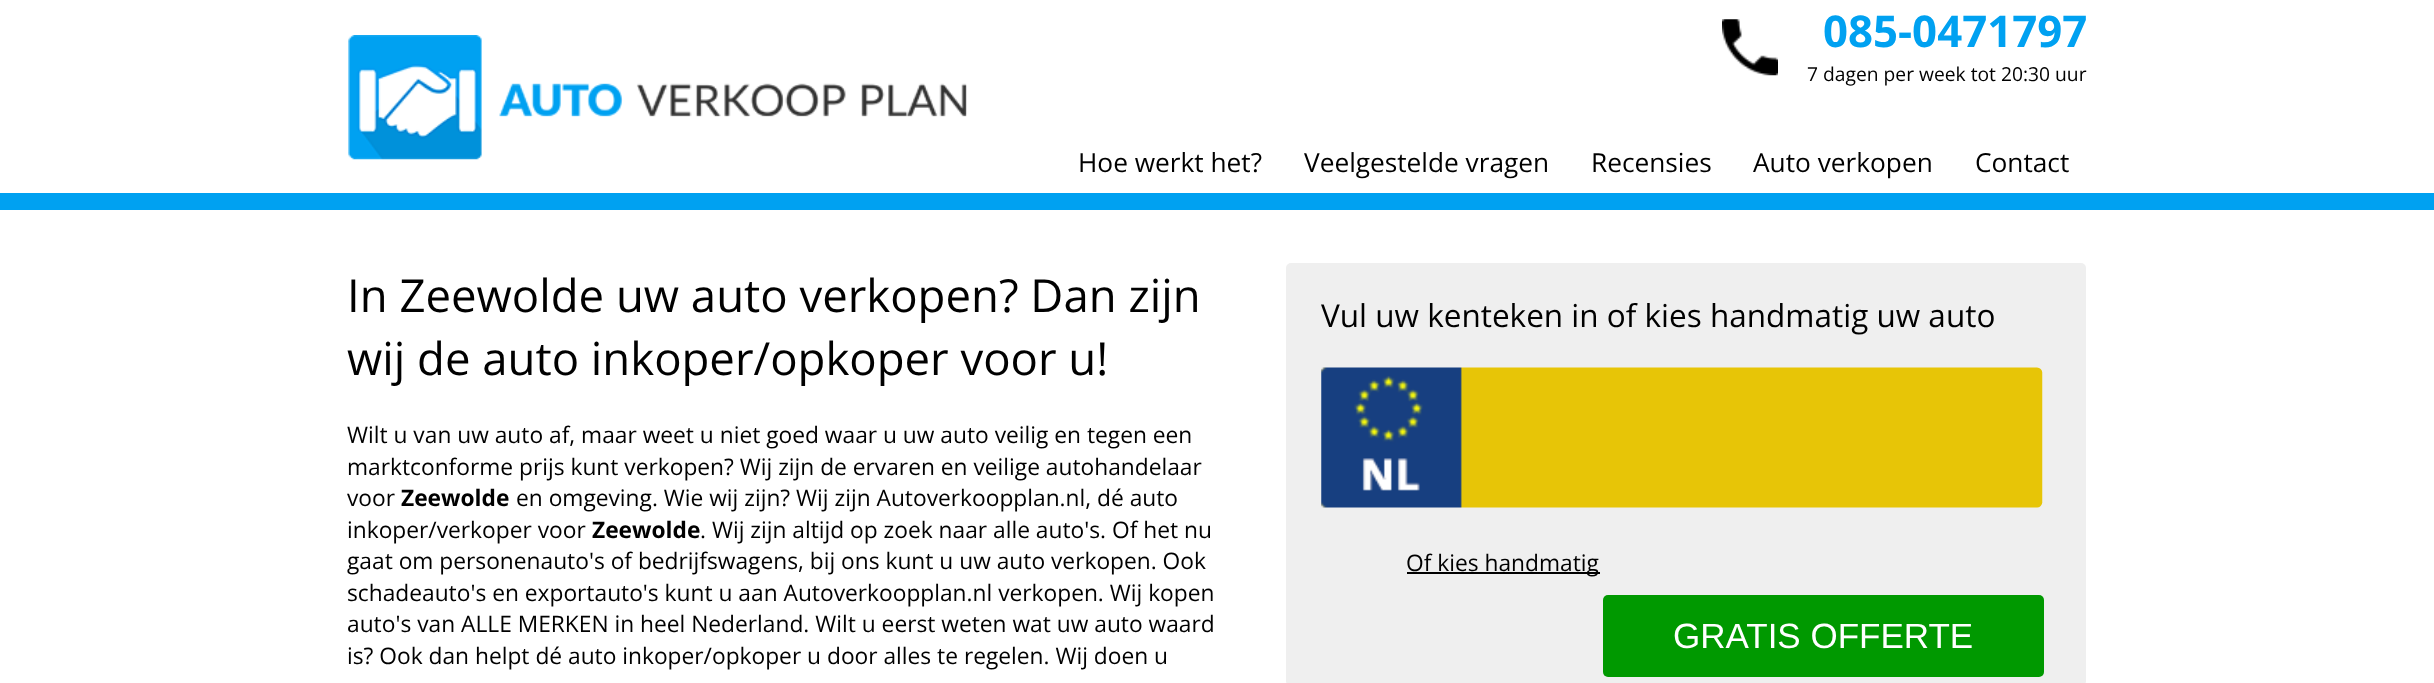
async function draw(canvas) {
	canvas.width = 2434;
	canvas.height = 683;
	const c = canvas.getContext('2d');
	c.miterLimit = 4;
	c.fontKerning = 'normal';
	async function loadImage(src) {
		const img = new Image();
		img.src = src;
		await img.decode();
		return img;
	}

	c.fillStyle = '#fff';
	c.fillRect(0, 0, 2434, 683);
	c.fillStyle = '#00a1f1';
	c.fillRect(0, 193, 2434, 17);
	c.drawImage(await loadImage('img1.png'), 348, 35, 619, 125);
	c.drawImage(await loadImage('img2.png'), 1722, 19, 56, 57);
	c.font = 'bold 43.75px Open Sans';
	c.fillText('085-0471797', 1823, 47);
	c.font = '19.25px Open Sans';
	c.fillStyle = '#000';
	c.fillText('7 dagen per week tot 20:30 uur', 1807, 81);
	c.font = '26.25px Open Sans';
	for (const [text, x, y] of [
		['Hoe werkt het?', 1078, 172],
		['Veelgestelde vragen', 1304, 172],
		['Recensies', 1591, 172],
		['Auto verkopen', 1753, 172],
		['Contact', 1975, 172],
	]) {
		c.fillText(text, x, y);
	}
	c.font = '45.5px Open Sans';
	c.fillText('In Zeewolde uw auto verkopen? Dan zijn', 347, 312);
	c.fillText('wij de auto inkoper/opkoper voor u!', 347, 375);
	c.font = '22.75px Open Sans';
	for (const [text, x, y] of [
		['Wilt u van uw auto af, maar weet u niet goed waar u uw auto veilig en tegen een', 347, 443],
		['marktconforme prijs kunt verkopen? Wij zijn de ervaren en veilige autohandelaar', 347, 475],
		['voor', 347, 506],
	]) {
		c.fillText(text, x, y);
	}
	c.font = 'bold 22.75px Open Sans';
	c.fillText('Zeewolde', 401, 506);
	c.font = '22.75px Open Sans';
	c.fillText('en omgeving. Wie wij zijn? Wij zijn Autoverkoopplan.nl, dé auto', 516, 506);
	c.fillText('inkoper/verkoper voor', 347, 538);
	c.font = 'bold 22.75px Open Sans';
	c.fillText('Zeewolde', 592, 538);
	c.font = '22.75px Open Sans';
	for (const [text, x, y] of [
		['. Wij zijn altijd op zoek naar alle auto\'s. Of het nu', 700, 538],
		['gaat om personenauto\'s of bedrijfswagens, bij ons kunt u uw auto verkopen. Ook', 347, 569],
		['schadeauto\'s en exportauto\'s kunt u aan Autoverkoopplan.nl verkopen. Wij kopen', 347, 601],
		['auto\'s van ALLE MERKEN in heel Nederland. Wilt u eerst weten wat uw auto waard', 347, 632],
		['is? Ook dan helpt dé auto inkoper/opkoper u door alles te regelen. Wij doen u', 347, 664],
	]) {
		c.fillText(text, x, y);
	}
	c.fillStyle = '#efefef';
	c.beginPath();
	c.roundRect(1286, 263, 800, 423, 5);
	c.fill();
	c.font = '31.5px Open Sans';
	c.fillStyle = '#000';
	c.fillText('Vul uw kenteken in of kies handmatig uw auto', 1321, 327);
	c.drawImage(await loadImage('img3.png'), 1321, 367, 722, 141);
	c.fillRect(1407, 572, 193, 2);
	c.font = '22.75px Open Sans';
	c.fillText('Of kies handmatig', 1406, 571);
	c.fillStyle = '#090';
	c.beginPath();
	c.roundRect(1603, 595, 441, 82, 5);
	c.fill();
	c.font = '35px Liberation Sans';
	c.fillStyle = '#fff';
	c.fillText('GRATIS OFFERTE', 1673, 648);
}

draw(document.querySelector('canvas'));
